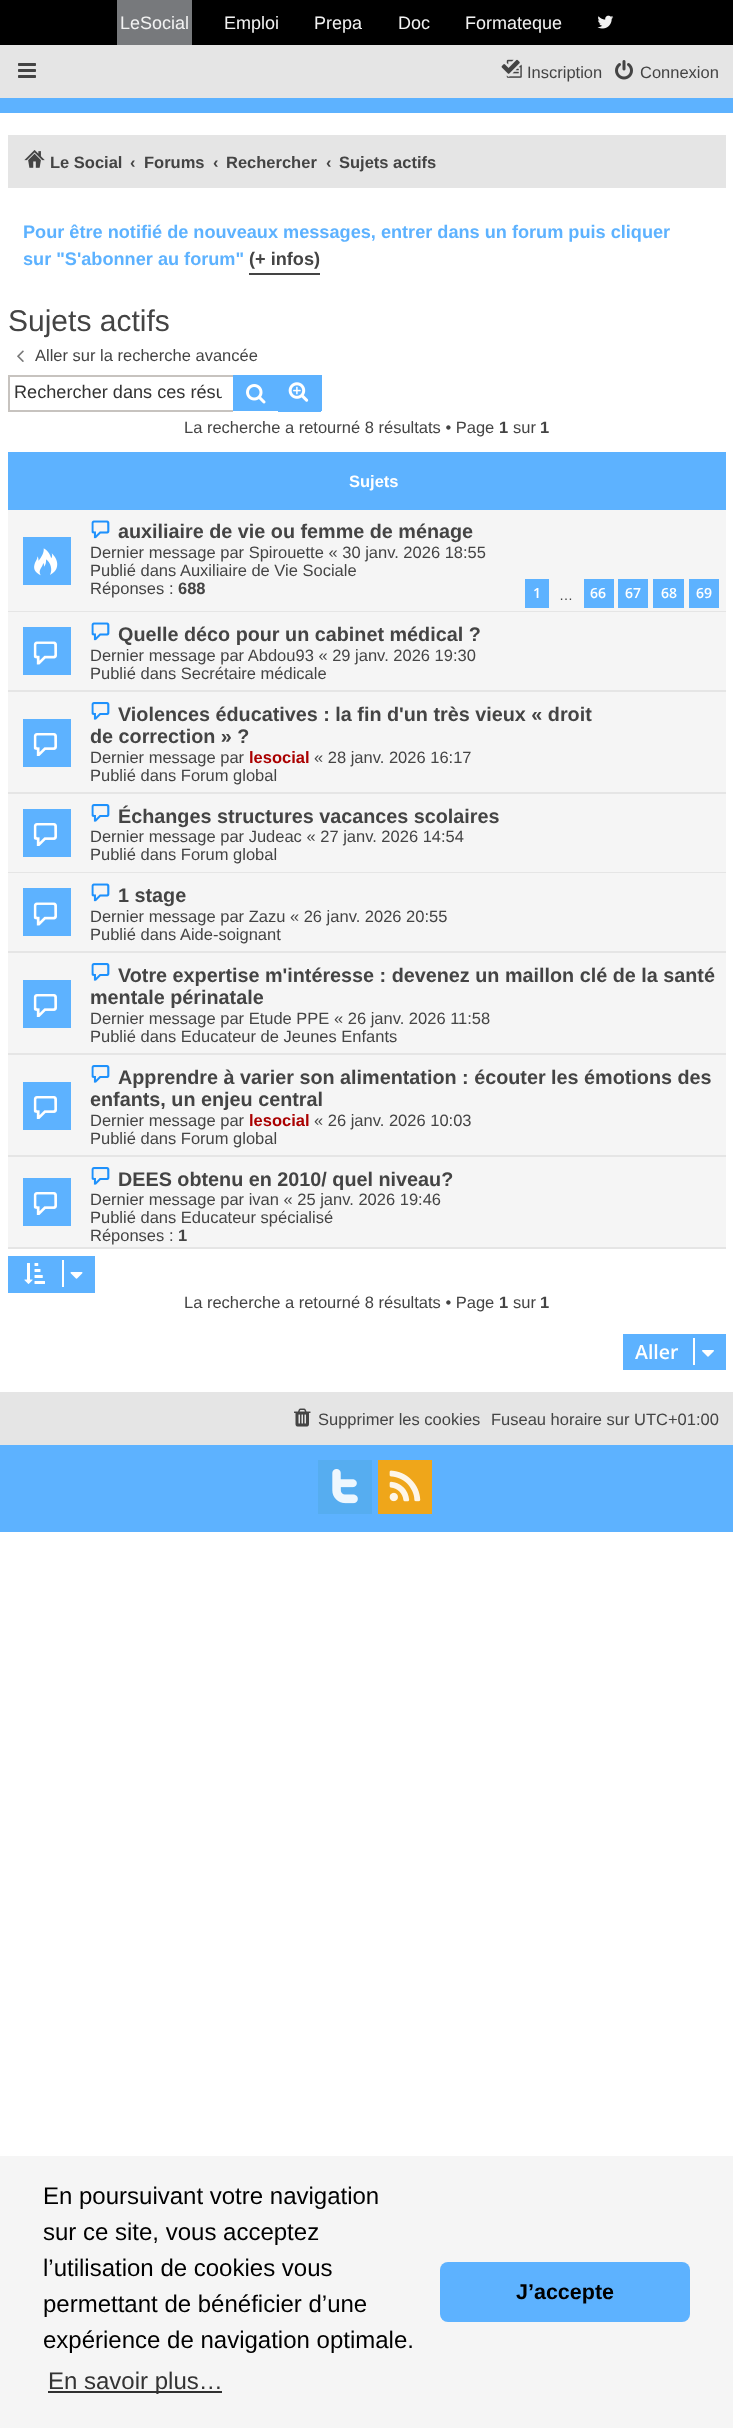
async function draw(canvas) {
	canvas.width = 733;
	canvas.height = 2428;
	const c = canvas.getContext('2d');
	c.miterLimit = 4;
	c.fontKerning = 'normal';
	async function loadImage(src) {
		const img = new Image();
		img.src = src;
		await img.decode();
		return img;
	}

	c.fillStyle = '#fff';
	c.fillRect(0, 0, 733, 2428);
	c.fillStyle = '#000';
	c.fillRect(0, 0, 733, 45);
	c.fillStyle = '#77797c';
	c.fillRect(117, 0, 75, 45);
	c.font = '18px Liberation Sans';
	c.fillStyle = '#f2f2f2';
	for (const [text, x, y] of [
		['LeSocial', 120, 29],
		['Emploi', 224, 29],
		['Prepa', 314, 29],
		['Doc', 398, 29],
		['Formateque', 465, 29],
	]) {
		c.fillText(text, x, y);
	}
	c.drawImage(await loadImage('img1.png'), 597, 15, 17, 14);
	c.fillStyle = '#e5e5e5';
	c.fillRect(0, 45, 733, 53);
	c.drawImage(await loadImage('img2.png'), 18, 63, 18, 15);
	c.drawImage(await loadImage('img3.png'), 501, 59, 21, 19);
	c.font = '16.5px Liberation Sans';
	c.fillStyle = '#444';
	c.fillText('Inscription', 527, 78);
	c.drawImage(await loadImage('img4.png'), 615, 60, 18, 20);
	c.fillText('Connexion', 640, 78);
	c.fillStyle = '#5db2ff';
	c.fillRect(0, 98, 733, 15);
	c.fillStyle = '#e5e5e5';
	c.fillRect(8, 135, 718, 53);
	c.drawImage(await loadImage('img5.png'), 24, 150, 21, 18);
	c.font = 'bold 16.5px Liberation Sans';
	c.fillStyle = '#444';
	for (const [text, x, y] of [
		['Le Social', 50, 168],
		['‹', 130, 168],
		['Forums', 144, 168],
		['‹', 213, 168],
		['Rechercher', 226, 168],
		['‹', 326, 168],
		['Sujets actifs', 339, 168],
	]) {
		c.fillText(text, x, y);
	}
	c.font = 'bold 18.15px Liberation Sans';
	c.fillStyle = '#5db2ff';
	c.fillText('Pour être notifié de nouveaux messages, entrer dans un forum puis cliquer', 23, 238);
	c.fillText('sur "S\'abonner au forum"', 23, 265);
	c.fillStyle = '#444';
	c.fillRect(249, 273, 71, 2);
	c.fillText('(+ infos)', 249, 265);
	c.font = '30px Liberation Sans';
	c.fillText('Sujets actifs', 8, 331);
	c.drawImage(await loadImage('img6.png'), 17, 350, 7, 12);
	c.font = '16.5px Liberation Sans';
	c.fillText('Aller sur la recherche avancée', 35, 361);
	for (const [x, y, w, h, color] of [
		[8, 375, 225, 2, '#c7c3bf'],
		[8, 410, 225, 2, '#c7c3bf'],
		[8, 375, 2, 36, '#c7c3bf'],
	]) {
		c.fillStyle = color;
		c.fillRect(x, y, w, h);
	}
	c.save();
	c.beginPath();
	c.rect(14, 383, 208, 21);
	c.clip();
	c.font = '18.15px Liberation Sans';
	c.fillStyle = '#333';
	c.fillText('Rechercher dans ces résu', 14, 398);
	c.restore();
	c.fillStyle = '#5db2ff';
	c.fillRect(233, 375, 45, 36);
	c.drawImage(await loadImage('img7.png'), 246, 384, 20, 20);
	for (const [x, y, w, h, color] of [
		[278, 377, 42, 33, '#5db2ff'],
		[278, 375, 43, 2, '#5db2ff'],
		[320, 375, 2, 36, '#5db2ff'],
		[278, 410, 43, 2, '#5db2ff'],
	]) {
		c.fillStyle = color;
		c.fillRect(x, y, w, h);
	}
	c.drawImage(await loadImage('img8.png'), 288, 382, 21, 20);
	c.fillStyle = '#444';
	c.fillText('La recherche a retourné 8 résultats • Page', 184, 433);
	c.font = 'bold 16.5px Liberation Sans';
	c.fillText('1', 499, 433);
	c.font = '16.5px Liberation Sans';
	c.fillText('sur', 513, 433);
	c.font = 'bold 16.5px Liberation Sans';
	c.fillText('1', 540, 433);
	c.fillStyle = '#5db2ff';
	c.fillRect(8, 452, 718, 58);
	c.fillStyle = '#fff';
	c.fillText('Sujets', 349, 487);
	for (const [x, y, w, h, color] of [
		[8, 510, 718, 101, '#f5f5f5'],
		[8, 611, 718, 1, '#e5e5e5'],
		[23, 537, 48, 48, '#5db2ff'],
	]) {
		c.fillStyle = color;
		c.fillRect(x, y, w, h);
	}
	c.drawImage(await loadImage('img9.png'), 34, 548, 24, 28);
	c.drawImage(await loadImage('img10.png'), 91, 520, 19, 19);
	c.font = 'bold 19.8px Liberation Sans';
	c.fillStyle = '#444';
	c.fillText('auxiliaire de vie ou femme de ménage', 118, 538);
	c.font = '16.5px Liberation Sans';
	for (const [text, x, y] of [
		['Dernier message par Spirouette « 30 janv. 2026 18:55', 90, 558],
		['Publié dans Auxiliaire de Vie Sociale', 90, 576],
		['Réponses :', 90, 594],
	]) {
		c.fillText(text, x, y);
	}
	c.font = 'bold 16.5px Liberation Sans';
	c.fillText('688', 178, 594);
	c.fillStyle = '#5db2ff';
	c.fillRect(525, 579, 24, 29);
	c.font = '600 14px Open Sans';
	c.fillStyle = '#fff';
	c.fillText('1', 533, 598);
	c.font = '14px Liberation Sans';
	c.fillStyle = '#444';
	c.fillText('…', 559, 600);
	c.fillStyle = '#5db2ff';
	c.fillRect(584, 579, 30, 29);
	c.font = '600 14px Open Sans';
	c.fillStyle = '#fff';
	c.fillText('66', 590, 598);
	c.fillStyle = '#5db2ff';
	c.fillRect(618, 579, 30, 29);
	c.fillStyle = '#fff';
	c.fillText('67', 625, 598);
	c.fillStyle = '#5db2ff';
	c.fillRect(653, 579, 31, 29);
	c.fillStyle = '#fff';
	c.fillText('68', 661, 598);
	c.fillStyle = '#5db2ff';
	c.fillRect(689, 579, 30, 29);
	c.fillStyle = '#fff';
	c.fillText('69', 696, 598);
	for (const [x, y, w, h, color] of [
		[8, 612, 718, 78, '#f5f5f5'],
		[8, 690, 718, 2, '#e5e5e5'],
		[23, 627, 48, 48, '#5db2ff'],
	]) {
		c.fillStyle = color;
		c.fillRect(x, y, w, h);
	}
	c.drawImage(await loadImage('img11.png'), 33, 641, 24, 24);
	c.drawImage(await loadImage('img10.png'), 91, 622, 19, 19);
	c.font = 'bold 19.8px Liberation Sans';
	c.fillStyle = '#444';
	c.fillText('Quelle déco pour un cabinet médical ?', 118, 641);
	c.font = '16.5px Liberation Sans';
	c.fillText('Dernier message par Abdou93 « 29 janv. 2026 19:30', 90, 661);
	c.fillText('Publié dans Secrétaire médicale', 90, 679);
	for (const [x, y, w, h, color] of [
		[8, 692, 718, 100, '#f5f5f5'],
		[8, 792, 718, 2, '#e5e5e5'],
		[23, 719, 48, 48, '#5db2ff'],
	]) {
		c.fillStyle = color;
		c.fillRect(x, y, w, h);
	}
	c.drawImage(await loadImage('img12.png'), 33, 733, 24, 23);
	c.drawImage(await loadImage('img13.png'), 91, 702, 19, 18);
	c.font = 'bold 19.8px Liberation Sans';
	c.fillStyle = '#444';
	c.fillText('Violences éducatives : la fin d\'un très vieux « droit', 118, 721);
	c.fillText('de correction » ?', 90, 743);
	c.font = '16.5px Liberation Sans';
	c.fillText('Dernier message par', 90, 763);
	c.font = 'bold 16.5px Liberation Sans';
	c.fillStyle = '#a00';
	c.fillText('lesocial', 249, 763);
	c.font = '16.5px Liberation Sans';
	c.fillStyle = '#444';
	c.fillText('« 28 janv. 2026 16:17', 314, 763);
	c.fillText('Publié dans Forum global', 90, 781);
	for (const [x, y, w, h, color] of [
		[8, 794, 718, 78, '#f5f5f5'],
		[8, 872, 718, 1, '#e5e5e5'],
		[23, 809, 48, 48, '#5db2ff'],
	]) {
		c.fillStyle = color;
		c.fillRect(x, y, w, h);
	}
	c.drawImage(await loadImage('img12.png'), 33, 823, 24, 23);
	c.drawImage(await loadImage('img13.png'), 91, 804, 19, 18);
	c.font = 'bold 19.8px Liberation Sans';
	c.fillStyle = '#444';
	c.fillText('Échanges structures vacances scolaires', 118, 823);
	c.font = '16.5px Liberation Sans';
	c.fillText('Dernier message par Judeac « 27 janv. 2026 14:54', 90, 842);
	c.fillText('Publié dans Forum global', 90, 860);
	for (const [x, y, w, h, color] of [
		[8, 873, 718, 78, '#f5f5f5'],
		[8, 951, 718, 2, '#e5e5e5'],
		[23, 888, 48, 48, '#5db2ff'],
	]) {
		c.fillStyle = color;
		c.fillRect(x, y, w, h);
	}
	c.drawImage(await loadImage('img11.png'), 33, 902, 24, 24);
	c.drawImage(await loadImage('img10.png'), 91, 883, 19, 19);
	c.font = 'bold 19.8px Liberation Sans';
	c.fillStyle = '#444';
	c.fillText('1 stage', 118, 902);
	c.font = '16.5px Liberation Sans';
	c.fillText('Dernier message par Zazu « 26 janv. 2026 20:55', 90, 922);
	c.fillText('Publié dans Aide-soignant', 90, 940);
	for (const [x, y, w, h, color] of [
		[8, 953, 718, 100, '#f5f5f5'],
		[8, 1053, 718, 2, '#e5e5e5'],
		[23, 980, 48, 48, '#5db2ff'],
	]) {
		c.fillStyle = color;
		c.fillRect(x, y, w, h);
	}
	c.drawImage(await loadImage('img12.png'), 33, 994, 24, 23);
	c.drawImage(await loadImage('img13.png'), 91, 963, 19, 18);
	c.font = 'bold 19.8px Liberation Sans';
	c.fillStyle = '#444';
	c.fillText('Votre expertise m\'intéresse : devenez un maillon clé de la santé', 118, 982);
	c.fillText('mentale périnatale', 90, 1004);
	c.font = '16.5px Liberation Sans';
	c.fillText('Dernier message par Etude PPE « 26 janv. 2026 11:58', 90, 1024);
	c.fillText('Publié dans Educateur de Jeunes Enfants', 90, 1042);
	for (const [x, y, w, h, color] of [
		[8, 1055, 718, 100, '#f5f5f5'],
		[8, 1155, 718, 2, '#e5e5e5'],
		[23, 1082, 48, 48, '#5db2ff'],
	]) {
		c.fillStyle = color;
		c.fillRect(x, y, w, h);
	}
	c.drawImage(await loadImage('img12.png'), 33, 1096, 24, 23);
	c.drawImage(await loadImage('img13.png'), 91, 1065, 19, 18);
	c.font = 'bold 19.8px Liberation Sans';
	c.fillStyle = '#444';
	c.fillText('Apprendre à varier son alimentation : écouter les émotions des', 118, 1084);
	c.fillText('enfants, un enjeu central', 90, 1106);
	c.font = '16.5px Liberation Sans';
	c.fillText('Dernier message par', 90, 1126);
	c.font = 'bold 16.5px Liberation Sans';
	c.fillStyle = '#a00';
	c.fillText('lesocial', 249, 1126);
	c.font = '16.5px Liberation Sans';
	c.fillStyle = '#444';
	c.fillText('« 26 janv. 2026 10:03', 314, 1126);
	c.fillText('Publié dans Forum global', 90, 1144);
	for (const [x, y, w, h, color] of [
		[8, 1157, 718, 90, '#f5f5f5'],
		[8, 1247, 718, 2, '#e5e5e5'],
		[23, 1178, 48, 48, '#5db2ff'],
	]) {
		c.fillStyle = color;
		c.fillRect(x, y, w, h);
	}
	c.drawImage(await loadImage('img12.png'), 33, 1192, 24, 23);
	c.drawImage(await loadImage('img13.png'), 91, 1167, 19, 18);
	c.font = 'bold 19.8px Liberation Sans';
	c.fillStyle = '#444';
	c.fillText('DEES obtenu en 2010/ quel niveau?', 118, 1186);
	c.font = '16.5px Liberation Sans';
	for (const [text, x, y] of [
		['Dernier message par ivan « 25 janv. 2026 19:46', 90, 1205],
		['Publié dans Educateur spécialisé', 90, 1223],
		['Réponses :', 90, 1241],
	]) {
		c.fillText(text, x, y);
	}
	c.font = 'bold 16.5px Liberation Sans';
	c.fillText('1', 178, 1241);
	c.fillStyle = '#5db2ff';
	c.fillRect(8, 1256, 87, 37);
	c.drawImage(await loadImage('img14.png'), 24, 1263, 21, 21);
	c.fillStyle = '#fff';
	c.fillRect(62, 1260, 2, 27);
	c.drawImage(await loadImage('img15.png'), 70, 1272, 13, 7);
	c.font = '16.5px Liberation Sans';
	c.fillStyle = '#444';
	c.fillText('La recherche a retourné 8 résultats • Page', 184, 1308);
	c.font = 'bold 16.5px Liberation Sans';
	c.fillText('1', 499, 1308);
	c.font = '16.5px Liberation Sans';
	c.fillText('sur', 513, 1308);
	c.font = 'bold 16.5px Liberation Sans';
	c.fillText('1', 540, 1308);
	c.fillStyle = '#5db2ff';
	c.fillRect(623, 1334, 103, 36);
	c.font = '600 19.5px Open Sans';
	c.fillStyle = '#fff';
	c.fillText('Aller', 635, 1359);
	c.fillRect(693, 1338, 2, 27);
	c.drawImage(await loadImage('img16.png'), 702, 1350, 12, 7);
	c.fillStyle = '#e5e5e5';
	c.fillRect(0, 1392, 733, 53);
	c.drawImage(await loadImage('img17.png'), 294, 1408, 17, 19);
	c.font = '16.5px Liberation Sans';
	c.fillStyle = '#444';
	c.fillText('Supprimer les cookies', 318, 1425);
	c.fillText('Fuseau horaire sur UTC+01:00', 491, 1425);
	c.fillStyle = '#5db2ff';
	c.fillRect(0, 1445, 733, 87);
	c.fillStyle = '#56adf0';
	c.fillRect(318, 1460, 54, 54);
	c.drawImage(await loadImage('img18.png'), 332, 1469, 26, 35);
	c.fillStyle = '#efa61a';
	c.fillRect(378, 1460, 54, 54);
	c.drawImage(await loadImage('img19.png'), 389, 1470, 32, 32);
	c.fillStyle = '#f5f5f5';
	c.fillRect(0, 2156, 733, 272);
	c.font = '24px Liberation Sans';
	c.fillStyle = '#000';
	for (const [text, x, y] of [
		['En poursuivant votre navigation', 43, 2204],
		['sur ce site, vous acceptez', 43, 2240],
		['l’utilisation de cookies vous', 43, 2276],
		['permettant de bénéficier d’une', 43, 2312],
		['expérience de navigation optimale.', 43, 2348],
	]) {
		c.fillText(text, x, y);
	}
	c.fillStyle = '#313131';
	c.fillRect(48, 2391, 174, 2);
	c.fillStyle = '#333';
	c.fillText('En savoir plus…', 48, 2389);
	c.fillStyle = '#5db2ff';
	c.beginPath();
	c.roundRect(440, 2262, 250, 60, 8);
	c.fill();
	c.font = 'bold 21.5px Liberation Sans';
	c.fillStyle = '#000';
	c.fillText('J’accepte', 516, 2299);
}

draw(document.querySelector('canvas'));
